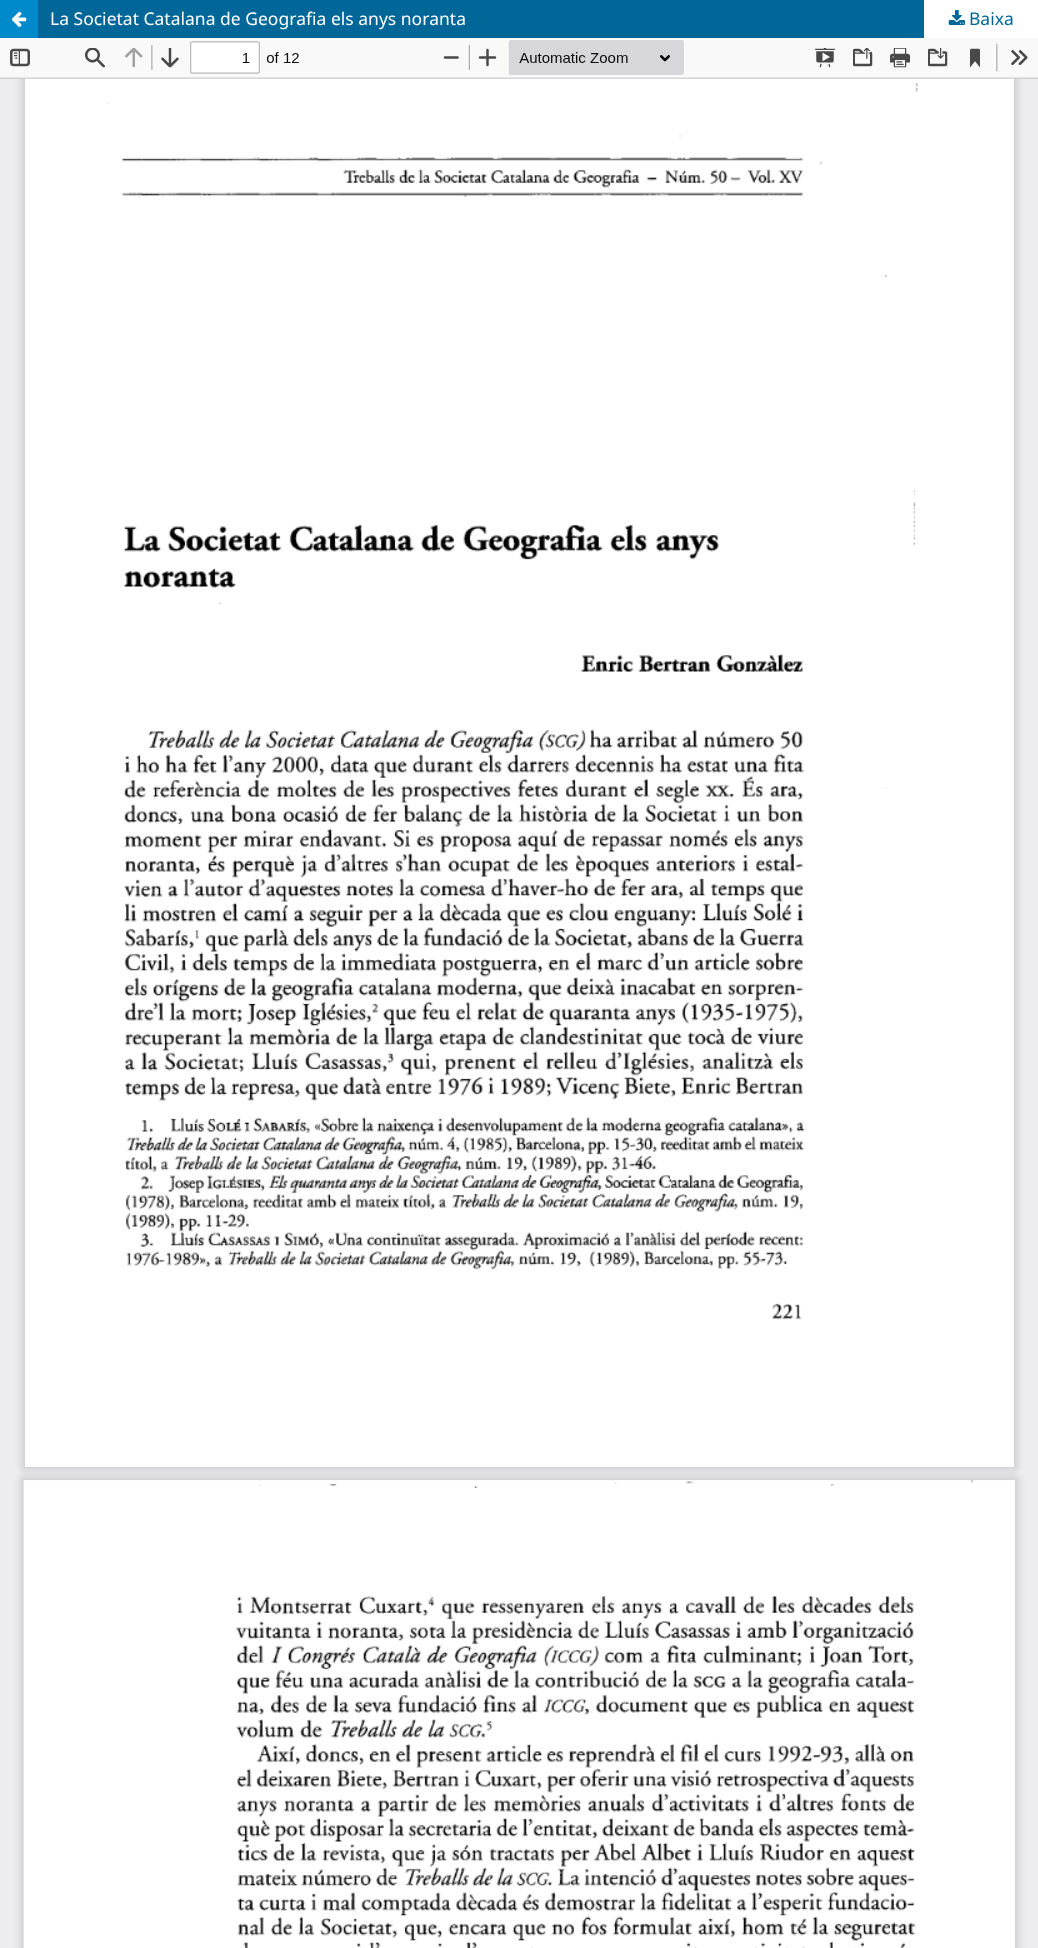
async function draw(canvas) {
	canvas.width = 1038;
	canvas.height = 1948;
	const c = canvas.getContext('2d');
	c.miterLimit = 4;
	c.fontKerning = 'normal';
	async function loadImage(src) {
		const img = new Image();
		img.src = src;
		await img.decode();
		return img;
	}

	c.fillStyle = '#fff';
	c.fillRect(0, 0, 1038, 1948);
	c.fillStyle = '#006798';
	c.fillRect(38, 0, 886, 38);
	c.fillStyle = '#008acb';
	c.fillRect(0, 0, 38, 38);
	c.drawImage(await loadImage('img1.png'), 11, 11, 16, 16);
	c.font = '17.5px Noto Sans';
	c.fillStyle = '#fff';
	c.fillText('La Societat Catalana de Geografia els anys noranta', 50, 25);
	c.drawImage(await loadImage('img2.png'), 948, 10, 17, 15);
	c.fillStyle = '#006798';
	c.fillText('Baixa', 969, 25);
	c.drawImage(await loadImage('img3.png'), 0, 38, 1038, 1910);
}

draw(document.querySelector('canvas'));
